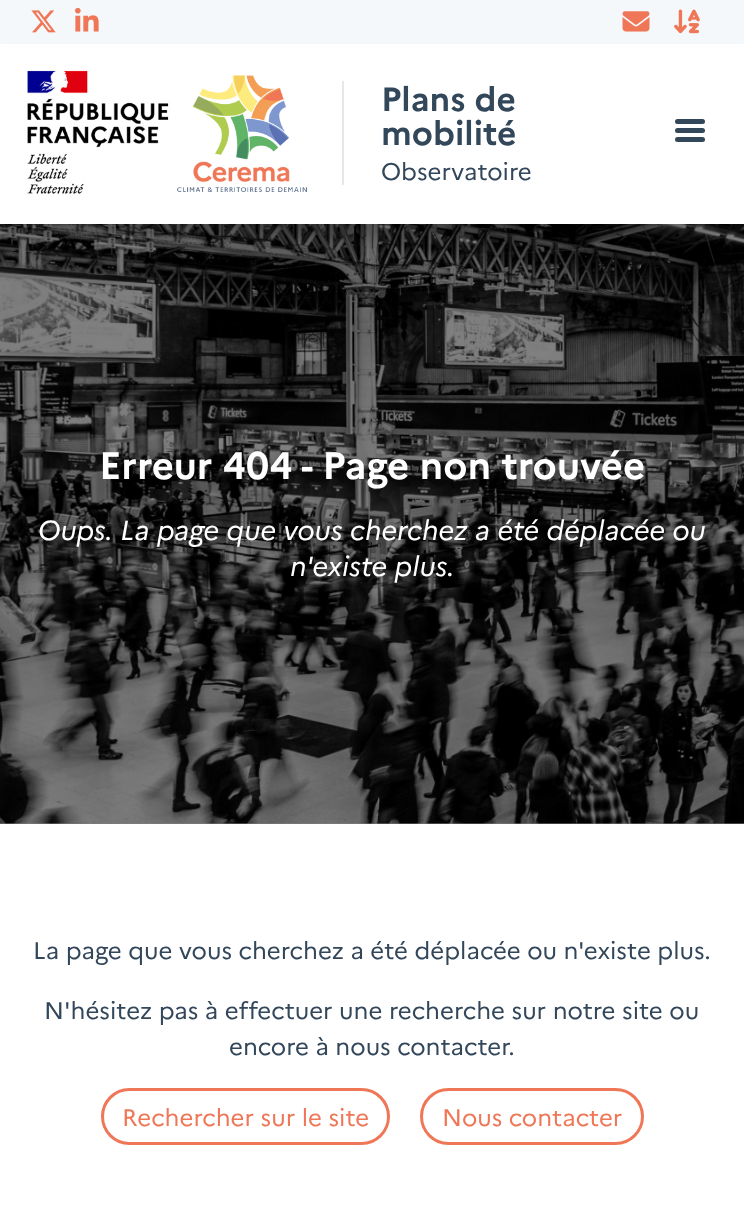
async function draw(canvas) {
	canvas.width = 744;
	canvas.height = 1208;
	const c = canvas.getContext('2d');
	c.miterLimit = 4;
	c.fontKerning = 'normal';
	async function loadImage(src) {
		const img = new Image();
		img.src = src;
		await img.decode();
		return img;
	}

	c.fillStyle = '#fff';
	c.fillRect(0, 0, 744, 1208);
	c.fillStyle = '#808080';
	c.fillRect(0, 823, 744, 1);
	c.drawImage(await loadImage('img6.png'), 0, 224, 744, 600);
	c.fillStyle = '#00000052';
	c.filter = 'blur(12px)';
	c.beginPath();
	c.rect(24, 80, 696, 132);
	c.fill();
	c.filter = 'none';
	c.fillStyle = '#0000001a';
	c.filter = 'blur(6px)';
	c.beginPath();
	c.rect(0, 56, 744, 180);
	c.fill();
	c.filter = 'none';
	c.fillStyle = '#f5f8fa';
	c.fillRect(0, 0, 744, 44);
	c.drawImage(await loadImage('img1.png'), 31, 10, 25, 23);
	c.drawImage(await loadImage('img2.png'), 75, 7, 24, 25);
	c.drawImage(await loadImage('img3.png'), 622, 11, 28, 21);
	c.drawImage(await loadImage('img4.png'), 674, 9, 26, 25);
	c.fillStyle = '#fff';
	c.fillRect(0, 48, 744, 176);
	c.drawImage(await loadImage('img5.png'), 27, 70, 280, 124);
	c.fillStyle = '#e7e7e7';
	c.fillRect(342, 81, 2, 104);
	c.font = 'bold 33.5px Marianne';
	c.fillStyle = '#33475b';
	c.fillText('Plans de', 381, 111);
	c.fillText('mobilité', 381, 145);
	c.font = '24px Marianne';
	c.fillText('Observatoire', 381, 180);
	c.beginPath();
	c.roundRect(675, 119, 30, 5, 2.5);
	c.fill();
	c.beginPath();
	c.roundRect(675, 128, 30, 5, 2.5);
	c.fill();
	c.beginPath();
	c.roundRect(675, 137, 30, 5, 2.5);
	c.fill();
	c.font = 'bold 38.4px Marianne';
	c.fillStyle = '#fff';
	c.fillText('Erreur 404 - Page non trouvée', 99, 479);
	c.font = 'italic 27.6px Marianne';
	c.fillText('Oups. La page que vous cherchez a été déplacée ou', 38, 540);
	c.fillText('n\'existe plus.', 290, 576);
	c.font = '24px Marianne';
	c.fillStyle = '#33475b';
	for (const [text, x, y] of [
		['La page que vous cherchez a été déplacée ou n\'existe plus.', 33, 959],
		['N\'hésitez pas à effectuer une recherche sur notre site ou', 44, 1019],
		['encore à nous contacter.', 229, 1055],
	]) {
		c.fillText(text, x, y);
	}
	c.beginPath();
	c.roundRect(102.5, 1089.5, 286, 54, 27);
	c.strokeStyle = '#ef7757';
	c.lineWidth = 3;
	c.stroke();
	c.fillStyle = '#ef7757';
	c.fillText('Rechercher sur le site', 122, 1126);
	c.beginPath();
	c.roundRect(421.5, 1089.5, 221, 54, 27);
	c.stroke();
	c.fillText('Nous contacter', 442, 1126);
}

draw(document.querySelector('canvas'));
